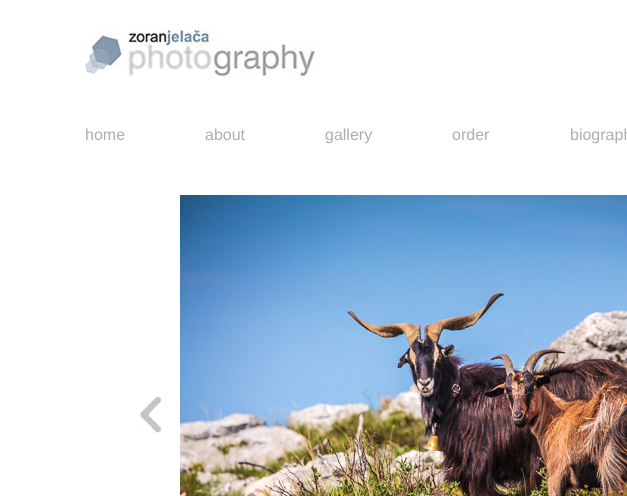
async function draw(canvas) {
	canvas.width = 627;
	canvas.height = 496;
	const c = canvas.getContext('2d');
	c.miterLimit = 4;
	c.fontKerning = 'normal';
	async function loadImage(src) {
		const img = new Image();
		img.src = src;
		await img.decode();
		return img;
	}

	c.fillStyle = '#fff';
	c.fillRect(0, 0, 627, 496);
	c.drawImage(await loadImage('img1.png'), 85, 30, 230, 47);
	c.font = '16px Liberation Sans';
	c.fillStyle = '#afafaf';
	for (const [text, x, y] of [
		['home', 85, 140],
		['about', 205, 140],
		['gallery', 325, 140],
		['order', 452, 140],
		['biograph', 570, 140],
	]) {
		c.fillText(text, x, y);
	}
	c.drawImage(await loadImage('img2.png'), 139, 395, 23, 39);
	c.drawImage(await loadImage('img3.png'), 180, 195, 447, 301);
}

draw(document.querySelector('canvas'));
